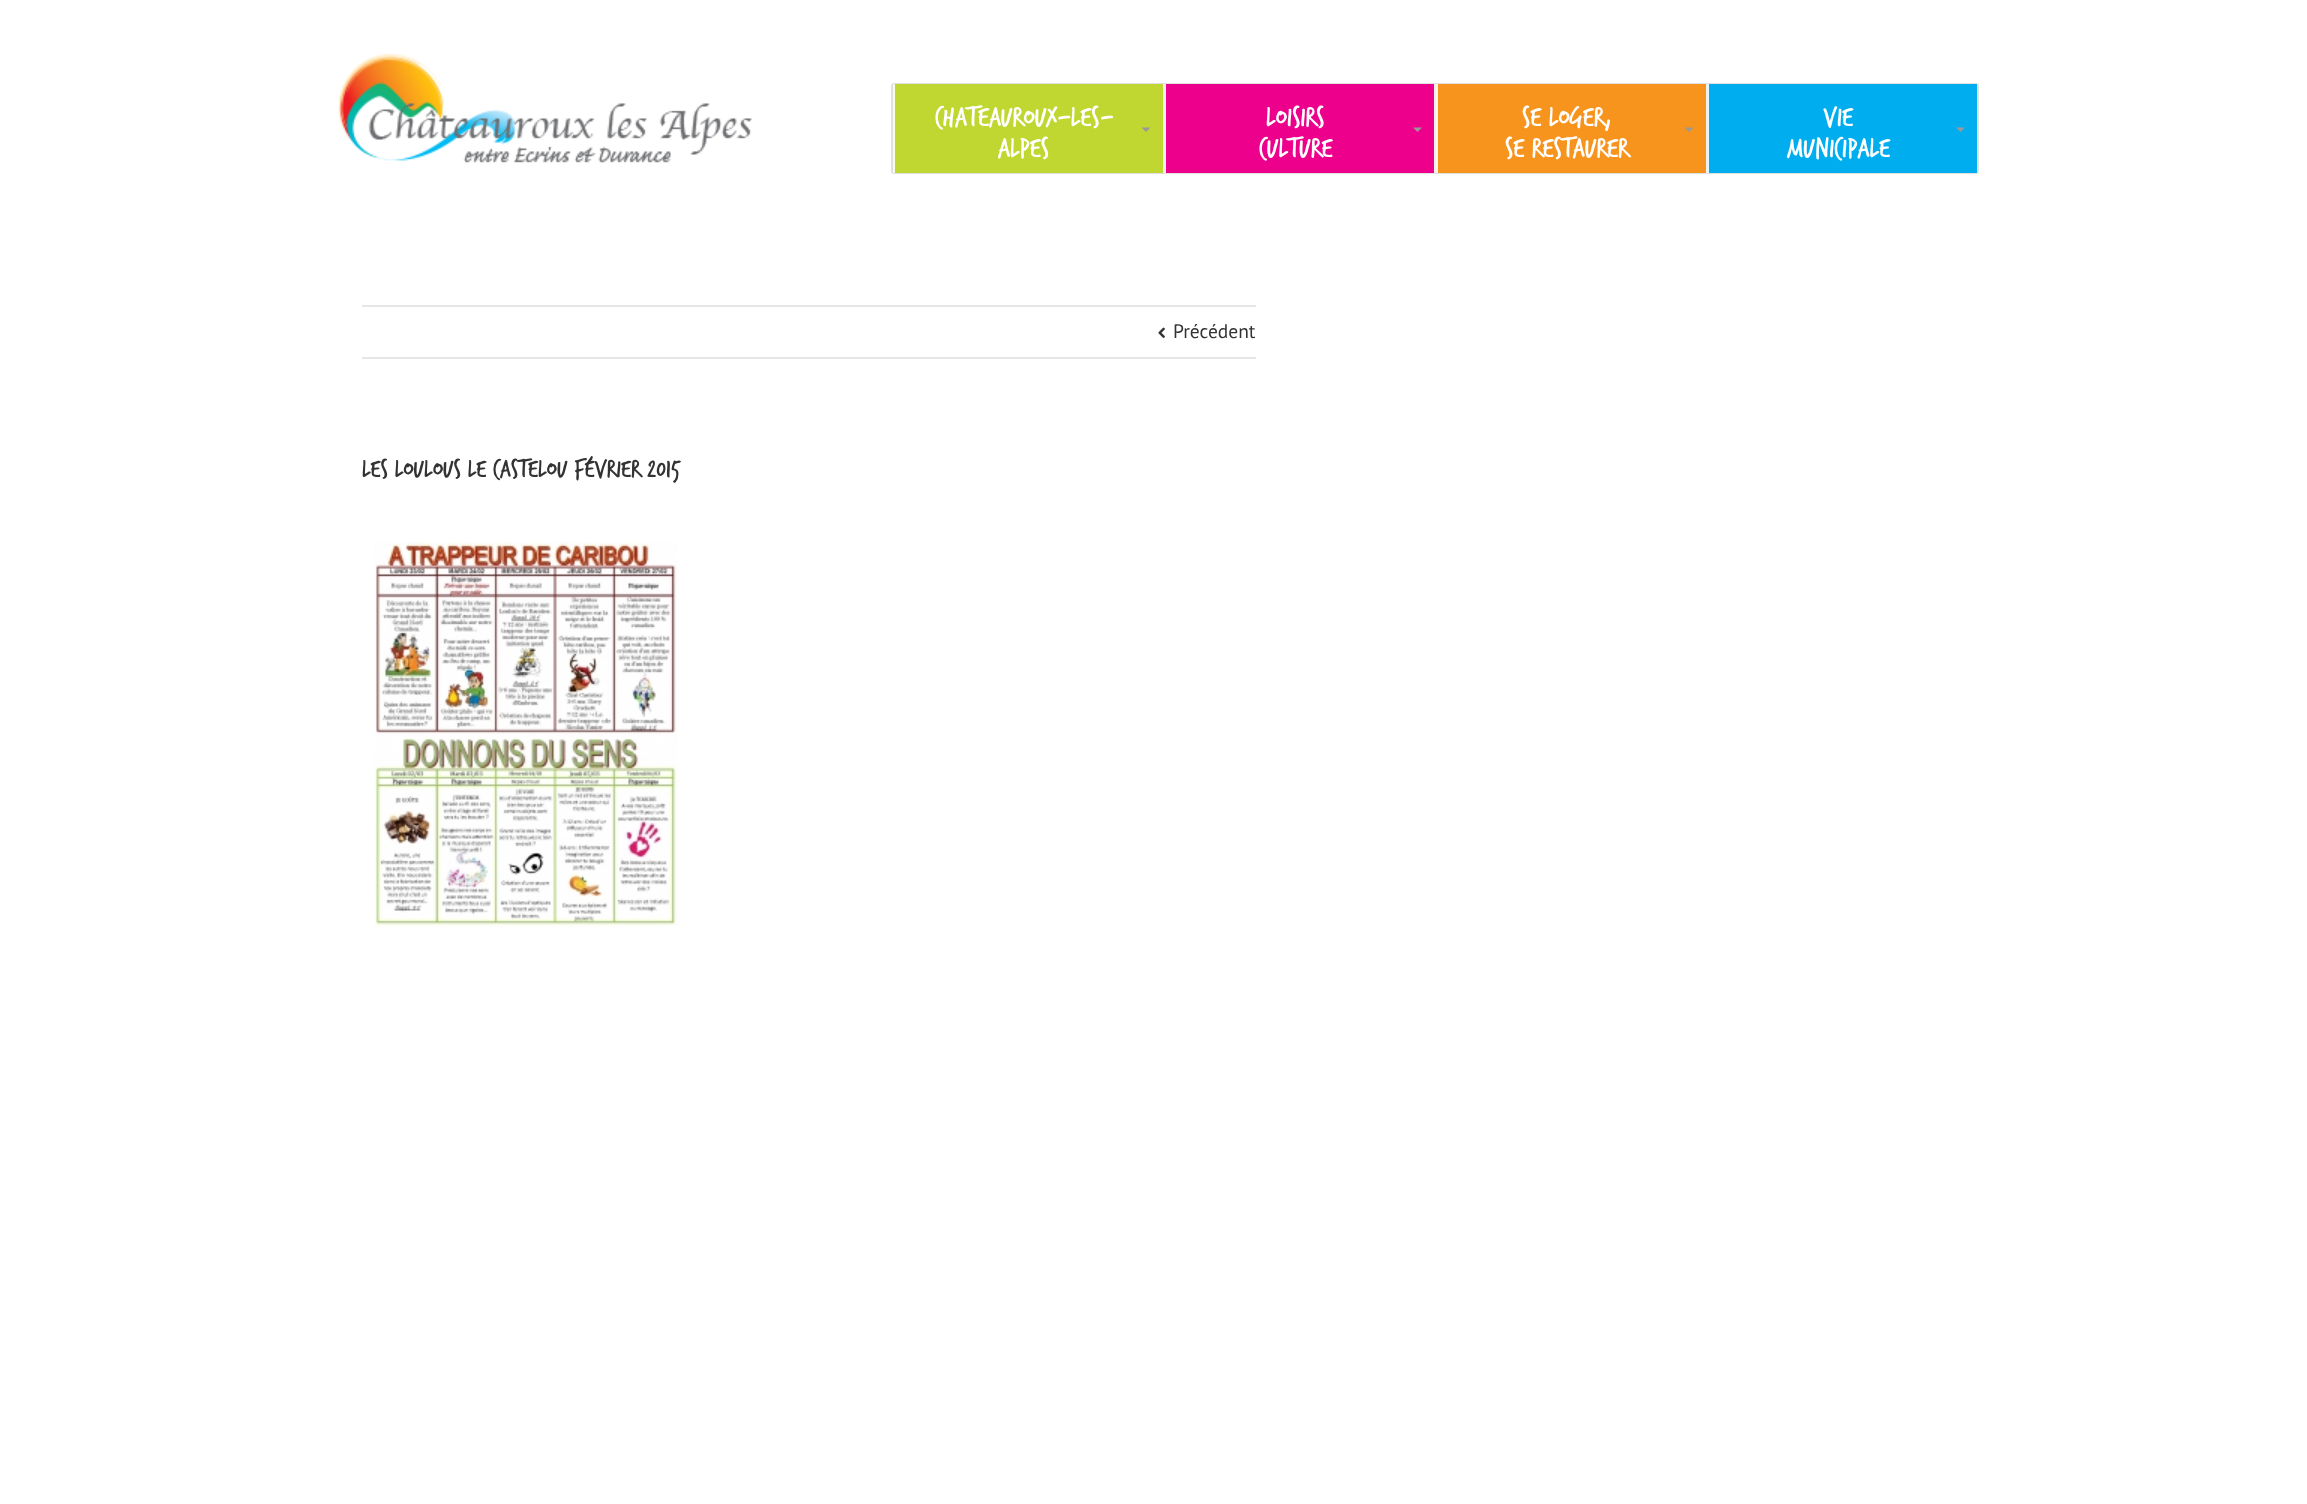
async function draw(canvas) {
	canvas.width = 2307;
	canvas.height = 1504;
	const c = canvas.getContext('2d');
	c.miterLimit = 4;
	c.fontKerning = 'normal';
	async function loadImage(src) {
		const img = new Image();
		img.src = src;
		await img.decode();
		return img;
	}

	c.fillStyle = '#fff';
	c.fillRect(0, 0, 2307, 1504);
	c.drawImage(await loadImage('img1.png'), 338, 53, 414, 110);
	c.beginPath();
	c.roundRect(892, 84, 1086, 89, 2);
	c.strokeStyle = '#e0e0e0';
	c.lineWidth = 2;
	c.stroke();
	c.fillStyle = '#bfd730';
	c.fillRect(895, 84, 268, 89);
	c.fillStyle = '#f9fbea';
	c.fillRect(893, 84, 2, 89);
	c.font = '30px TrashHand';
	c.fillStyle = '#fff';
	c.fillText('CHATEAUROUX-LES-', 935, 125);
	c.fillText('ALPES', 998, 156);
	c.fillStyle = '#999';
	c.beginPath();
	c.moveTo(1141.5, 127.5);
	c.lineTo(1150.5, 127.5);
	c.lineTo(1146, 132);
	c.closePath();
	c.fill();
	for (const [x, y, w, h, color] of [
		[1166, 84, 268, 89, '#ec008c'],
		[1165, 84, 1, 89, '#fde6f4'],
		[1163, 84, 2, 89, '#f0f0f0'],
	]) {
		c.fillStyle = color;
		c.fillRect(x, y, w, h);
	}
	c.fillStyle = '#fff';
	c.fillText('LOISIRS', 1266, 125);
	c.fillText('CULTURE', 1259, 156);
	c.fillStyle = '#999';
	c.beginPath();
	c.moveTo(1413, 127.5);
	c.lineTo(1422, 127.5);
	c.lineTo(1417.5, 132);
	c.closePath();
	c.fill();
	for (const [x, y, w, h, color] of [
		[1438, 84, 268, 89, '#f7941d'],
		[1436, 84, 2, 89, '#fef4e8'],
		[1434, 84, 2, 89, '#f0f0f0'],
	]) {
		c.fillStyle = color;
		c.fillRect(x, y, w, h);
	}
	c.fillStyle = '#fff';
	c.fillText('SE LOGER,', 1522, 125);
	c.fillText('SE RESTAURER', 1505, 156);
	c.fillStyle = '#999';
	c.beginPath();
	c.moveTo(1684.5, 127.5);
	c.lineTo(1693.5, 127.5);
	c.lineTo(1689, 132);
	c.closePath();
	c.fill();
	for (const [x, y, w, h, color] of [
		[1709, 84, 268, 89, '#00aeef'],
		[1708, 84, 1, 89, '#e6f7fd'],
		[1706, 84, 2, 89, '#f0f0f0'],
	]) {
		c.fillStyle = color;
		c.fillRect(x, y, w, h);
	}
	c.fillStyle = '#fff';
	c.fillText('VIE', 1823, 125);
	c.fillText('MUNICIPALE', 1787, 156);
	c.fillStyle = '#999';
	c.beginPath();
	c.moveTo(1956, 127.5);
	c.lineTo(1965, 127.5);
	c.lineTo(1960.5, 132);
	c.closePath();
	c.fill();
	c.fillStyle = '#e7e6e6';
	c.fillRect(362, 305, 894, 2);
	c.fillRect(362, 357, 894, 2);
	c.drawImage(await loadImage('img2.png'), 1158, 327, 7, 11);
	c.font = '19.5px PT Sans';
	c.fillStyle = '#333';
	c.fillText('Précédent', 1173, 338);
	c.font = '27px TrashHand';
	c.fillText('les loulous le castelou février 2015', 362, 476);
	c.drawImage(await loadImage('img3.png'), 374, 542, 304, 385);
}

draw(document.querySelector('canvas'));
